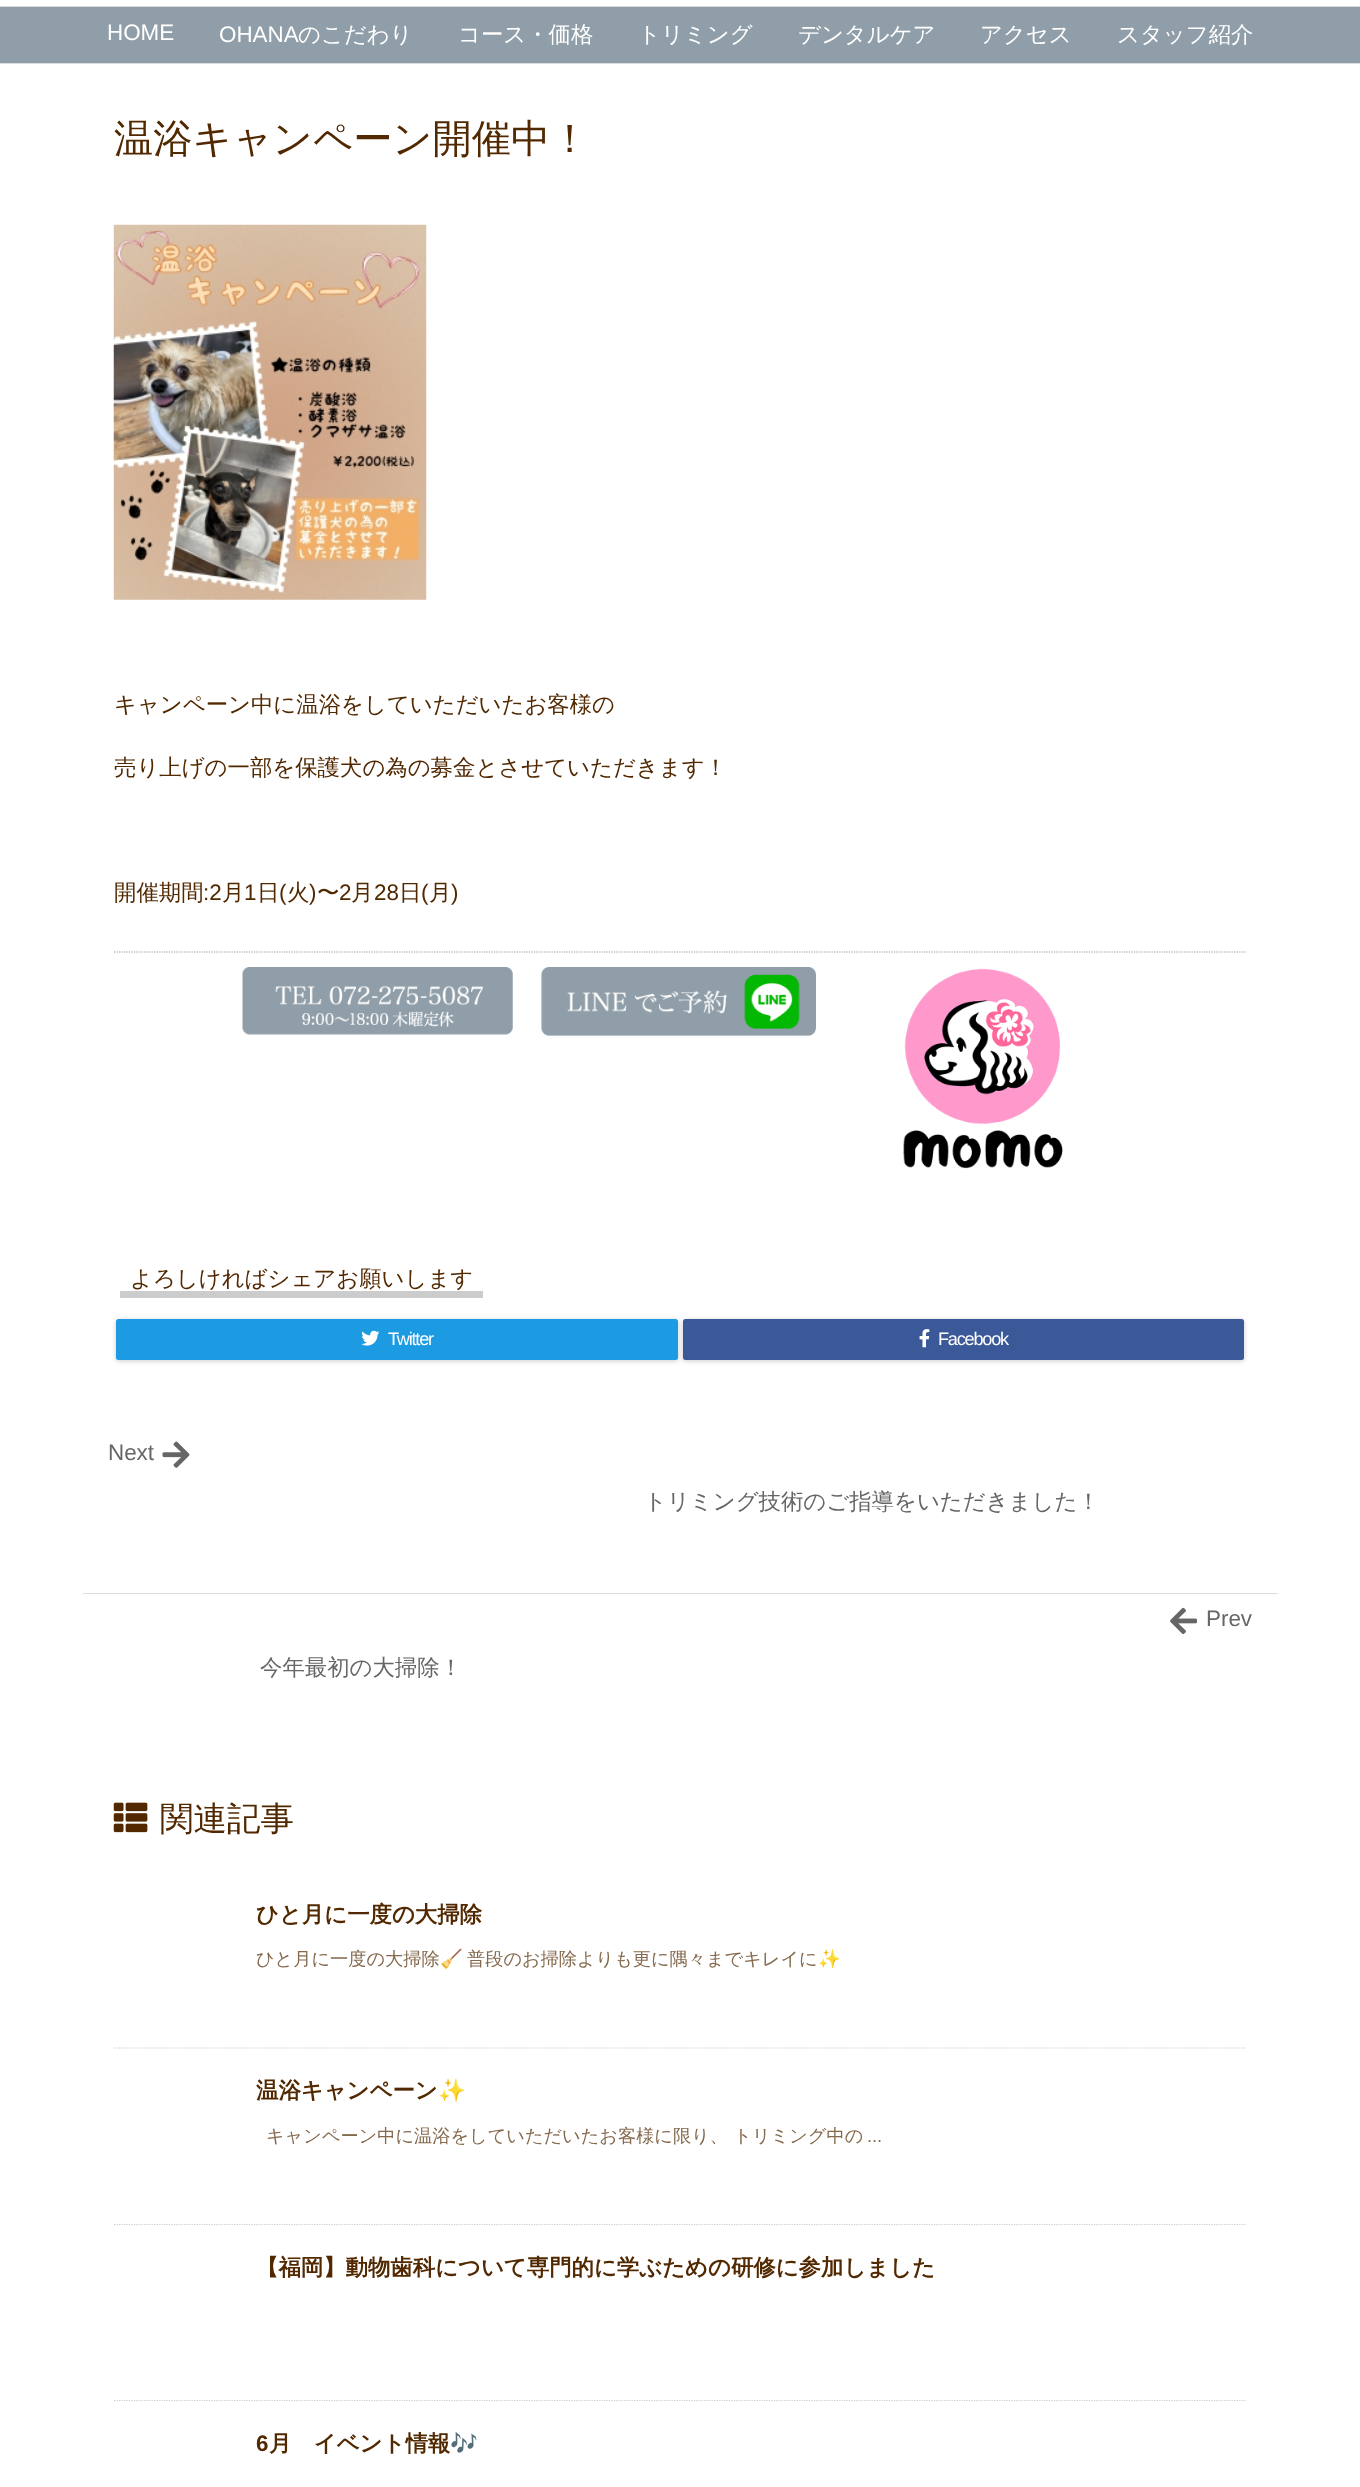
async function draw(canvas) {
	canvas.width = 1360;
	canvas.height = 2487;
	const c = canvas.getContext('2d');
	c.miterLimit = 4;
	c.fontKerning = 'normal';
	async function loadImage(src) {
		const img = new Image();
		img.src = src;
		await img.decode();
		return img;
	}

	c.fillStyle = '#fff';
	c.fillRect(0, 0, 1360, 2487);
	for (const [x, y, w, h, color] of [
		[0, 7, 1360, 56, '#8f9ea8'],
		[0, 6, 1360, 1, '#ddd'],
		[0, 63, 1360, 1, '#ddd'],
	]) {
		c.fillStyle = color;
		c.fillRect(x, y, w, h);
	}
	c.font = '22.4px Liberation Sans';
	c.fillStyle = '#fff';
	c.fillText('HOME', 107, 40);
	c.fillText('OHANA', 219, 42);
	c.font = '500 22.4px WenQuanYi Zen Hei';
	for (const [text, x, y] of [
		['のこだわり', 298, 42],
		['コース・価格', 458, 42],
		['トリミング', 638, 42],
		['デンタルケア', 798, 42],
		['アクセス', 980, 42],
		['スタッフ紹介', 1117, 42],
	]) {
		c.fillText(text, x, y);
	}
	c.font = '500 39.25px WenQuanYi Zen Hei';
	c.fillStyle = '#512800';
	c.fillText('温浴キャンペーン開催中！', 114, 152);
	c.drawImage(await loadImage('img1.png'), 113, 224, 314, 376);
	c.font = '500 22.4px WenQuanYi Zen Hei';
	for (const [text, x, y] of [
		['キャンペーン中に温浴をしていただいたお客様の', 114, 712],
		['売り上げの一部を保護犬の為の募金とさせていただきます！', 114, 775],
		['開催期間', 114, 900],
	]) {
		c.fillText(text, x, y);
	}
	c.font = '22.4px Liberation Sans';
	c.fillText(':2', 203, 900);
	c.font = '500 22.4px WenQuanYi Zen Hei';
	c.fillText('月', 222, 900);
	c.font = '22.4px Liberation Sans';
	c.fillText('1', 244, 900);
	c.font = '500 22.4px WenQuanYi Zen Hei';
	c.fillText('日', 257, 900);
	c.font = '22.4px Liberation Sans';
	c.fillText('(', 279, 900);
	c.font = '500 22.4px WenQuanYi Zen Hei';
	c.fillText('火', 287, 900);
	c.font = '22.4px Liberation Sans';
	c.fillText(')', 309, 900);
	c.font = '500 22.4px WenQuanYi Zen Hei';
	c.fillText('〜', 317, 900);
	c.font = '22.4px Liberation Sans';
	c.fillText('2', 339, 900);
	c.font = '500 22.4px WenQuanYi Zen Hei';
	c.fillText('月', 351, 900);
	c.font = '22.4px Liberation Sans';
	c.fillText('28', 374, 900);
	c.font = '500 22.4px WenQuanYi Zen Hei';
	c.fillText('日', 399, 900);
	c.font = '22.4px Liberation Sans';
	c.fillText('(', 421, 900);
	c.font = '500 22.4px WenQuanYi Zen Hei';
	c.fillText('月', 429, 900);
	c.font = '22.4px Liberation Sans';
	c.fillText(')', 451, 900);
	c.beginPath();
	c.moveTo(114, 952);
	c.lineTo(1246, 952);
	c.strokeStyle = '#999';
	c.lineWidth = 1.2;
	c.setLineDash([1.25, 1.25]);
	c.stroke();
	c.drawImage(await loadImage('img2.png'), 241, 967, 272, 68);
	c.drawImage(await loadImage('img3.png'), 541, 967, 275, 69);
	c.drawImage(await loadImage('img4.png'), 903, 968, 160, 201);
	c.fillStyle = '#ccc';
	c.fillRect(120, 1291, 363, 7);
	c.font = '500 22.4px WenQuanYi Zen Hei';
	c.fillStyle = '#512800';
	c.fillText('よろしければシェアお願いします', 130, 1286);
	c.fillStyle = '#00000033';
	c.filter = 'blur(2.5px)';
	c.beginPath();
	c.roundRect(116, 1320, 562, 41, 2.5);
	c.fill();
	c.filter = 'none';
	c.fillStyle = '#1c9be2';
	c.beginPath();
	c.roundRect(116, 1319, 562, 41, 2.5);
	c.fill();
	c.drawImage(await loadImage('img5.png'), 361, 1330, 19, 16);
	c.letterSpacing = '-1.25px';
	c.font = '18.2px Liberation Sans';
	c.fillStyle = '#fff';
	c.fillText('Twitter', 388, 1345);
	c.fillStyle = '#00000033';
	c.filter = 'blur(2.5px)';
	c.beginPath();
	c.roundRect(683, 1320, 561, 41, 2.5);
	c.fill();
	c.filter = 'none';
	c.fillStyle = '#3b5998';
	c.beginPath();
	c.roundRect(683, 1319, 561, 41, 2.5);
	c.fill();
	c.drawImage(await loadImage('img6.png'), 919, 1329, 11, 19);
	c.fillStyle = '#fff';
	c.fillText('Facebook', 938, 1345);
	c.fillStyle = '#ddd';
	c.fillRect(83, 1593, 1195, 1);
	c.letterSpacing = '0px';
	c.font = '22.4px Liberation Sans';
	c.fillStyle = '#666';
	c.fillText('Next', 108, 1460);
	c.drawImage(await loadImage('img7.png'), 162, 1441, 28, 27);
	c.font = '500 22.4px WenQuanYi Zen Hei';
	c.fillText('トリミング技術のご指導をいただきました！', 644, 1509);
	c.drawImage(await loadImage('img8.png'), 1170, 1607, 27, 27);
	c.font = '22.4px Liberation Sans';
	c.fillText('Prev', 1206, 1626);
	c.font = '500 22.4px WenQuanYi Zen Hei';
	c.fillText('今年最初の大掃除！', 260, 1675);
	c.drawImage(await loadImage('img9.png'), 113, 1802, 35, 31);
	c.font = '500 33.5px WenQuanYi Zen Hei';
	c.fillStyle = '#512800';
	c.fillText('関連記事', 160, 1830);
	c.font = 'bold 22.4px WenQuanYi Zen Hei';
	c.fillText('ひと月に一度の大掃除', 256, 1922);
	c.font = '500 18.2px WenQuanYi Zen Hei';
	c.fillStyle = '#85694d';
	c.fillText('ひと月に一度の大掃除', 256, 1965);
	c.font = '18.2px Noto Color Emoji';
	c.fillText('🧹', 440, 1965);
	c.font = '500 18.2px WenQuanYi Zen Hei';
	c.fillText('普段のお掃除よりも更に隅々までキレイに', 467, 1965);
	c.font = '18.2px Noto Color Emoji';
	c.fillText('✨', 818, 1965);
	c.beginPath();
	c.moveTo(114, 2048);
	c.lineTo(1246, 2048);
	c.strokeStyle = '#ccc';
	c.stroke();
	c.font = 'bold 22.4px WenQuanYi Zen Hei';
	c.fillStyle = '#512800';
	c.fillText('温浴キャンペーン', 256, 2098);
	c.font = 'bold 22.4px Noto Color Emoji';
	c.fillText('✨', 438, 2098);
	c.font = '500 18.2px WenQuanYi Zen Hei';
	c.fillStyle = '#85694d';
	c.fillText('キャンペーン中に温浴をしていただいたお客様に限り、 トリミング中の', 266, 2142);
	c.font = '18.2px Liberation Sans';
	c.fillText('...', 867, 2142);
	c.beginPath();
	c.moveTo(114, 2224.5);
	c.lineTo(1246, 2224.5);
	c.stroke();
	c.font = 'bold 22.4px WenQuanYi Zen Hei';
	c.fillStyle = '#512800';
	c.fillText('【福岡】動物歯科について専門的に学ぶための研修に参加しました', 256, 2275);
	c.beginPath();
	c.moveTo(114, 2400.5);
	c.lineTo(1246, 2400.5);
	c.stroke();
	c.font = 'bold 22.4px Liberation Sans';
	c.fillText('6', 256, 2451);
	c.font = 'bold 22.4px WenQuanYi Zen Hei';
	c.fillText('月　イベント情報', 269, 2451);
	c.font = 'bold 22.4px Noto Color Emoji';
	c.fillText('🎶', 450, 2451);
}

draw(document.querySelector('canvas'));
